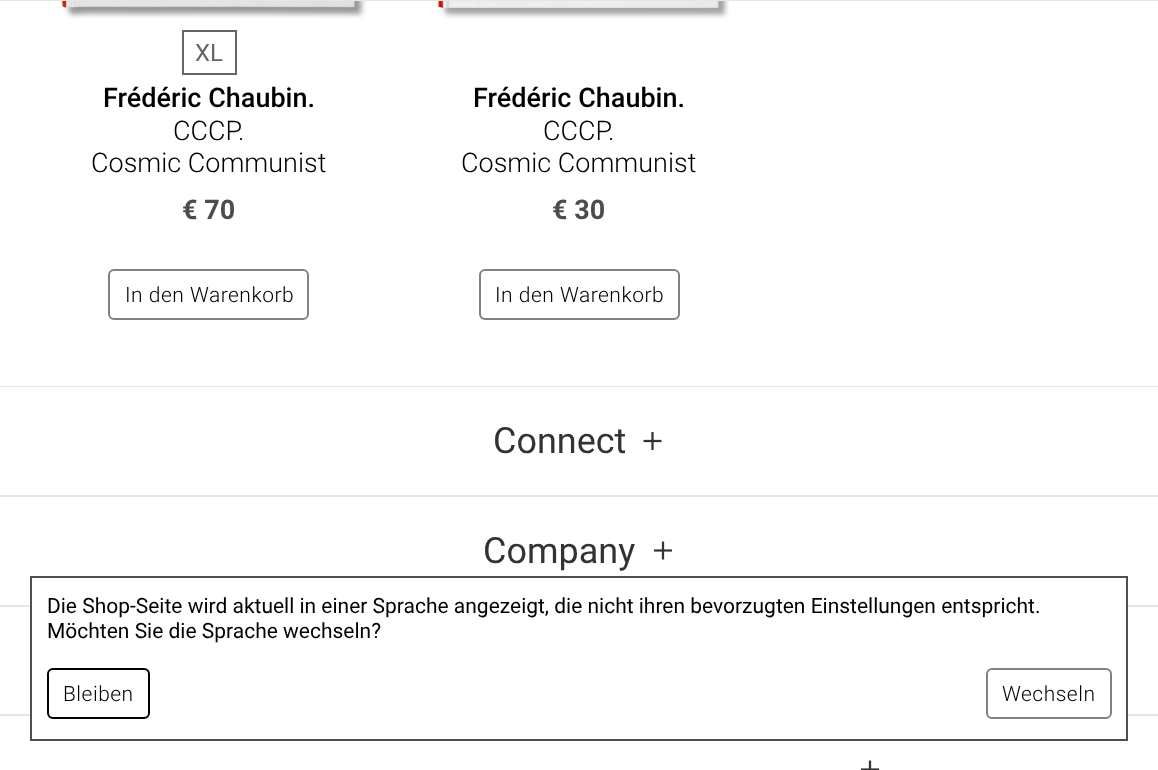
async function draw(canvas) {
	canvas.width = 1158;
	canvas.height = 770;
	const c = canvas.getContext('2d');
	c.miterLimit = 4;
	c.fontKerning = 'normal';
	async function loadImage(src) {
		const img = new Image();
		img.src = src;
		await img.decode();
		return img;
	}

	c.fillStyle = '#fff';
	c.fillRect(0, 0, 1158, 770);
	c.fillStyle = '#e5e5e5';
	c.fillRect(0, 0, 1158, 1);
	c.drawImage(await loadImage('img1.png'), 61, 1, 305, 18);
	c.strokeStyle = '#666';
	c.lineWidth = 2;
	c.strokeRect(183, 31, 53, 43);
	c.font = '24px Roboto';
	c.fillStyle = '#666';
	c.fillText('XL', 195, 61);
	c.font = '500 27px Roboto';
	c.fillStyle = '#000';
	c.fillText('Frédéric Chaubin.', 103, 107);
	c.font = '300 27px Roboto';
	c.fillText('CCCP.', 173, 140);
	c.fillText('Cosmic Communist', 91, 172);
	c.font = 'bold 27px Roboto';
	c.fillStyle = '#4d4d4d';
	c.fillText('€ 70', 182, 219);
	c.beginPath();
	c.roundRect(109, 270, 199, 49, 5);
	c.strokeStyle = '#828282';
	c.stroke();
	c.letterSpacing = '0.5px';
	c.font = '300 21px Roboto';
	c.fillStyle = '#000';
	c.fillText('In den Warenkorb', 125, 302);
	c.drawImage(await loadImage('img2.png'), 438, 1, 291, 18);
	c.letterSpacing = '0px';
	c.font = '500 27px Roboto';
	c.fillText('Frédéric Chaubin.', 473, 107);
	c.font = '300 27px Roboto';
	c.fillText('CCCP.', 543, 140);
	c.fillText('Cosmic Communist', 461, 172);
	c.font = 'bold 27px Roboto';
	c.fillStyle = '#4d4d4d';
	c.fillText('€ 30', 552, 219);
	c.beginPath();
	c.roundRect(480, 270, 199, 49, 5);
	c.stroke();
	c.letterSpacing = '0.5px';
	c.font = '300 21px Roboto';
	c.fillStyle = '#000';
	c.fillText('In den Warenkorb', 495, 302);
	c.fillStyle = '#e5e5e5';
	c.fillRect(0, 386, 1158, 1);
	c.letterSpacing = '0px';
	c.font = '36px Roboto';
	c.fillStyle = '#333';
	c.fillText('Connect', 493, 453);
	c.drawImage(await loadImage('img3.png'), 643, 432, 19, 18);
	c.fillStyle = '#e5e5e5';
	c.fillRect(0, 495, 1158, 2);
	c.fillStyle = '#333';
	c.fillText('Company', 483, 563);
	c.drawImage(await loadImage('img4.png'), 654, 541, 18, 19);
	c.fillStyle = '#e5e5e5';
	c.fillRect(0, 605, 1158, 2);
	c.fillRect(0, 714, 1158, 2);
	c.drawImage(await loadImage('img5.png'), 861, 760, 18, 10);
	c.fillStyle = '#fff';
	c.fillRect(32, 605, 1094, 111);
	c.strokeStyle = '#495057';
	c.strokeRect(31, 577, 1096, 163);
	c.font = '21px Roboto';
	c.fillStyle = '#000';
	c.fillText('Die Shop-Seite wird aktuell in einer Sprache angezeigt, die nicht ihren bevorzugten Einstellungen entspricht.', 47, 613);
	c.fillText('Möchten Sie die Sprache wechseln?', 47, 638);
	c.beginPath();
	c.roundRect(48, 669, 101, 49, 5);
	c.strokeStyle = '#000';
	c.stroke();
	c.letterSpacing = '0.5px';
	c.font = '300 21px Roboto';
	c.fillText('Bleiben', 63, 701);
	c.beginPath();
	c.roundRect(987, 669, 124, 49, 5);
	c.strokeStyle = '#828282';
	c.stroke();
	c.fillText('Wechseln', 1002, 701);
}

draw(document.querySelector('canvas'));
